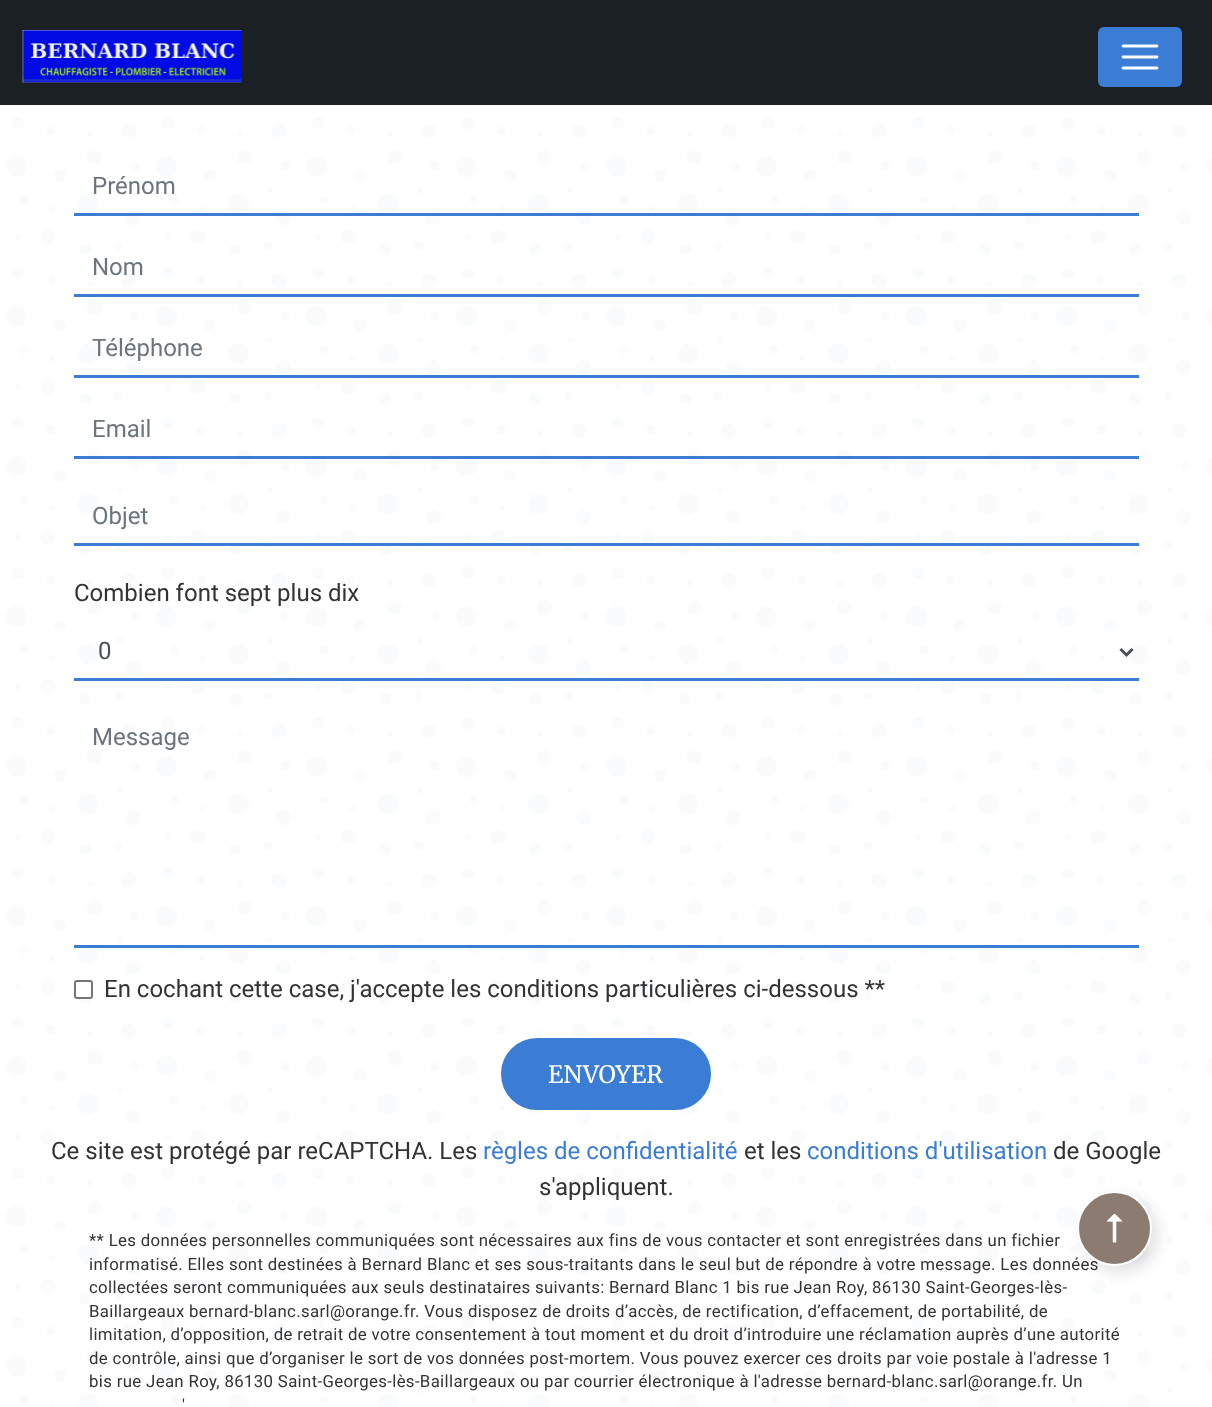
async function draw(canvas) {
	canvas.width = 1212;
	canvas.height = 1407;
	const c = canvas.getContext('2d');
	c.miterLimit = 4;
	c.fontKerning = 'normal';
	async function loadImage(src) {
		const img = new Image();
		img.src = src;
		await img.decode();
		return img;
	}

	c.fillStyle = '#fff';
	c.fillRect(0, 0, 1212, 1407);
	c.drawImage(await loadImage('img1.png'), 6, 117, 1206, 1290);
	c.fillStyle = '#1b2024';
	c.fillRect(0, 0, 1212, 105);
	c.drawImage(await loadImage('img2.png'), 22, 30, 220, 53);
	c.fillStyle = '#3b7dd4';
	c.beginPath();
	c.roundRect(1098, 27, 84, 60, 6);
	c.fill();
	c.beginPath();
	c.moveTo(1123, 46);
	c.lineTo(1157, 46);
	c.moveTo(1123, 57);
	c.lineTo(1157, 57);
	c.moveTo(1123, 68);
	c.lineTo(1157, 68);
	c.strokeStyle = '#fff';
	c.lineWidth = 2.8;
	c.lineCap = 'round';
	c.stroke();
	c.fillRect(74, 213, 1065, 3);
	c.font = '24px Roboto';
	c.fillStyle = '#6c757d';
	c.fillText('Prénom', 92, 194);
	c.fillStyle = '#3b7dd4';
	c.fillRect(74, 294, 1065, 3);
	c.fillStyle = '#6c757d';
	c.fillText('Nom', 92, 275);
	c.fillStyle = '#3b7dd4';
	c.fillRect(74, 375, 1065, 3);
	c.fillStyle = '#6c757d';
	c.fillText('Téléphone', 92, 356);
	c.fillStyle = '#3b7dd4';
	c.fillRect(74, 456, 1065, 3);
	c.fillStyle = '#6c757d';
	c.fillText('Email', 92, 437);
	c.fillStyle = '#3b7dd4';
	c.fillRect(74, 543, 1065, 3);
	c.fillStyle = '#6c757d';
	c.fillText('Objet', 92, 524);
	c.fillStyle = '#333';
	c.fillText('Combien font sept plus dix', 74, 601);
	c.fillStyle = '#3b7dd4';
	c.fillRect(74, 678, 1065, 3);
	c.beginPath();
	c.moveTo(1120.5, 649);
	c.lineTo(1126.5, 655);
	c.lineTo(1132.5, 649);
	c.strokeStyle = '#495057';
	c.lineWidth = 3;
	c.lineCap = 'butt';
	c.stroke();
	c.fillStyle = '#495057';
	c.fillText('0', 98, 659);
	c.fillStyle = '#3b7dd4';
	c.fillRect(74, 945, 1065, 3);
	c.fillStyle = '#6c757d';
	c.fillText('Message', 92, 745);
	c.fillStyle = '#fff';
	c.beginPath();
	c.roundRect(75, 981, 17, 17, 2);
	c.fill();
	c.strokeStyle = '#767676';
	c.lineWidth = 2;
	c.stroke();
	c.fillStyle = '#333';
	c.fillText('En cochant cette case, j\'accepte les conditions particulières ci-dessous **', 104, 997);
	c.fillStyle = '#3b7dd4';
	c.beginPath();
	c.roundRect(502.5, 1039.5, 207, 69, 34.5);
	c.fill();
	c.strokeStyle = '#3b7dd4';
	c.lineWidth = 3;
	c.stroke();
	c.font = '24px Merriweather';
	c.fillStyle = '#fff';
	c.fillText('ENVOYER', 548, 1083);
	c.font = '24px Roboto';
	c.fillStyle = '#333';
	c.fillText('Ce site est protégé par reCAPTCHA. Les', 51, 1159);
	c.fillStyle = '#3b7dd4';
	c.fillText('règles de confidentialité', 483, 1159);
	c.fillStyle = '#333';
	c.fillText('et les', 744, 1159);
	c.fillStyle = '#3b7dd4';
	c.fillText('conditions d\'utilisation', 807, 1159);
	c.fillStyle = '#333';
	c.fillText('de Google', 1053, 1159);
	c.fillText('s\'appliquent.', 539, 1195);
	c.letterSpacing = '0.34px';
	c.font = '16.8px Roboto';
	for (const [text, x, y] of [
		['** Les données personnelles communiquées sont nécessaires aux fins de vous contacter et sont enregistrées dans un fichier', 89, 1246],
		['informatisé. Elles sont destinées à Bernard Blanc et ses sous-traitants dans le seul but de répondre à votre message. Les données', 89, 1270],
		['collectées seront communiquées aux seuls destinataires suivants: Bernard Blanc 1 bis rue Jean Roy, 86130 Saint-Georges-lès-', 89, 1293],
		['Baillargeaux bernard-blanc.sarl@orange.fr. Vous disposez de droits d’accès, de rectification, d’effacement, de portabilité, de', 89, 1317],
		['limitation, d’opposition, de retrait de votre consentement à tout moment et du droit d’introduire une réclamation auprès d’une autorité', 89, 1340],
		['de contrôle, ainsi que d’organiser le sort de vos données post-mortem. Vous pouvez exercer ces droits par voie postale à l\'adresse 1', 89, 1364],
		['bis rue Jean Roy, 86130 Saint-Georges-lès-Baillargeaux ou par courrier électronique à l\'adresse bernard-blanc.sarl@orange.fr. Un', 89, 1387],
		['\'', 182, 1411],
	]) {
		c.fillText(text, x, y);
	}
	c.fillStyle = '#0000001f';
	c.filter = 'blur(7.5px)';
	c.beginPath();
	c.roundRect(1083, 1197, 75, 75, 37.5);
	c.fill();
	c.filter = 'none';
	c.fillStyle = '#8c7b71';
	c.beginPath();
	c.arc(1114.5, 1228.5, 36.5, 0, 2 * Math.PI);
	c.fill();
	c.strokeStyle = '#fff';
	c.lineWidth = 2;
	c.stroke();
	c.drawImage(await loadImage('img3.png'), 1106, 1213, 17, 30);
}

draw(document.querySelector('canvas'));
